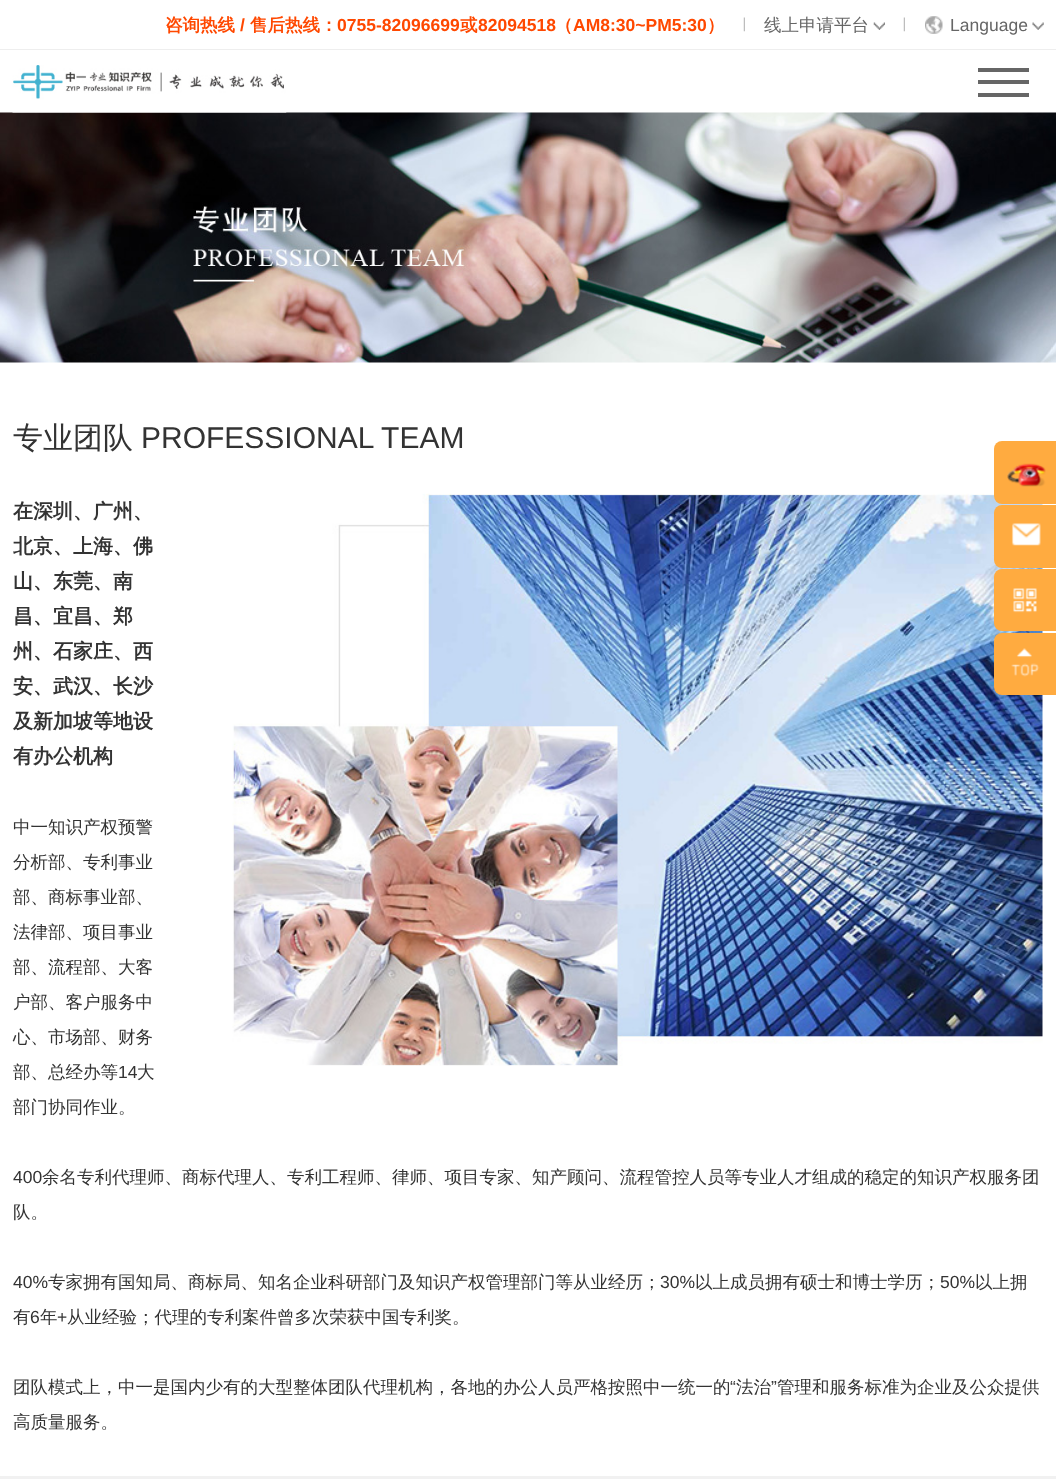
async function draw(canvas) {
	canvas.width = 1056;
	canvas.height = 1479;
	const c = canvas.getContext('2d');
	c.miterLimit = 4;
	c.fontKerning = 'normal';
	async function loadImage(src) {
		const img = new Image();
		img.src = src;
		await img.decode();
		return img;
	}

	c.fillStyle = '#fff';
	c.fillRect(0, 0, 1056, 1479);
	c.fillStyle = '#eee';
	c.fillRect(0, 49, 1056, 1);
	c.font = 'bold 17.5px WenQuanYi Zen Hei';
	c.fillStyle = '#ff4800';
	c.fillText('咨询热线', 165, 31);
	c.font = 'bold 17.5px Liberation Sans';
	c.fillText('/', 240, 31);
	c.font = 'bold 17.5px WenQuanYi Zen Hei';
	c.fillText('售后热线：', 250, 31);
	c.font = 'bold 17.5px Liberation Sans';
	c.fillText('0755-82096699', 337, 31);
	c.font = 'bold 17.5px WenQuanYi Zen Hei';
	c.fillText('或', 460, 31);
	c.font = 'bold 17.5px Liberation Sans';
	c.fillText('82094518', 478, 31);
	c.font = 'bold 17.5px WenQuanYi Zen Hei';
	c.fillText('（', 555, 31);
	c.font = 'bold 17.5px Liberation Sans';
	c.fillText('AM8:30~PM5:30', 573, 31);
	c.font = 'bold 17.5px WenQuanYi Zen Hei';
	c.fillText('）', 707, 31);
	c.drawImage(await loadImage('img1.png'), 743, 17, 2, 15);
	c.font = '500 17.5px WenQuanYi Zen Hei';
	c.fillStyle = '#666';
	c.fillText('线上申请平台', 764, 31);
	c.drawImage(await loadImage('img2.png'), 873, 22, 12, 8);
	c.drawImage(await loadImage('img1.png'), 903, 17, 2, 15);
	c.drawImage(await loadImage('img3.png'), 925, 16, 18, 18);
	c.font = '17.5px Liberation Sans';
	c.fillText('Language', 950, 31);
	c.drawImage(await loadImage('img4.png'), 1032, 22, 12, 8);
	c.drawImage(await loadImage('img6.png'), 0, 112, 1056, 251);
	c.drawImage(await loadImage('img5.png'), 12, 65, 275, 48);
	for (const [x, y, w, h, color] of [
		[978, 80, 51, 4, '#666'],
		[978, 68, 51, 4, '#666'],
		[978, 93, 51, 4, '#666'],
	]) {
		c.fillStyle = color;
		c.fillRect(x, y, w, h);
	}
	c.font = '500 30px WenQuanYi Zen Hei';
	c.fillStyle = '#333';
	c.fillText('专业团队', 13, 448);
	c.font = '30px Liberation Sans';
	c.fillText('PROFESSIONAL TEAM', 141, 448);
	c.font = 'bold 20px WenQuanYi Zen Hei';
	for (const [text, x, y] of [
		['在深圳、广州、', 13, 518],
		['北京、上海、佛', 13, 553],
		['山、东莞、南', 13, 588],
		['昌、宜昌、郑', 13, 623],
		['州、石家庄、西', 13, 658],
		['安、武汉、长沙', 13, 693],
		['及新加坡等地设', 13, 728],
		['有办公机构', 13, 763],
	]) {
		c.fillText(text, x, y);
	}
	c.drawImage(await loadImage('img7.png'), 232, 493, 811, 573);
	c.font = '500 17.5px WenQuanYi Zen Hei';
	for (const [text, x, y] of [
		['中一知识产权预警', 13, 833],
		['分析部、专利事业', 13, 868],
		['部、商标事业部、', 13, 903],
		['法律部、项目事业', 13, 938],
		['部、流程部、大客', 13, 973],
		['户部、客户服务中', 13, 1008],
		['心、市场部、财务', 13, 1043],
		['部、总经办等', 13, 1078],
	]) {
		c.fillText(text, x, y);
	}
	c.font = '17.5px Liberation Sans';
	c.fillText('14', 118, 1078);
	c.font = '500 17.5px WenQuanYi Zen Hei';
	c.fillText('大', 137, 1078);
	c.fillText('部门协同作业。', 13, 1113);
	c.font = '17.5px Liberation Sans';
	c.fillText('400', 13, 1183);
	c.font = '500 17.5px WenQuanYi Zen Hei';
	c.fillText('余名专利代理师、商标代理人、专利工程师、律师、项目专家、知产顾问、流程管控人员等专业人才组成的稳定的知识产权服务团', 42, 1183);
	c.fillText('队。', 13, 1218);
	c.font = '17.5px Liberation Sans';
	c.fillText('40%', 13, 1288);
	c.font = '500 17.5px WenQuanYi Zen Hei';
	c.fillText('专家拥有国知局、商标局、知名企业科研部门及知识产权管理部门等从业经历；', 48, 1288);
	c.font = '17.5px Liberation Sans';
	c.fillText('30%', 660, 1288);
	c.font = '500 17.5px WenQuanYi Zen Hei';
	c.fillText('以上成员拥有硕士和博士学历；', 695, 1288);
	c.font = '17.5px Liberation Sans';
	c.fillText('50%', 940, 1288);
	c.font = '500 17.5px WenQuanYi Zen Hei';
	c.fillText('以上拥', 975, 1288);
	c.fillText('有', 13, 1323);
	c.font = '17.5px Liberation Sans';
	c.fillText('6', 30, 1323);
	c.font = '500 17.5px WenQuanYi Zen Hei';
	c.fillText('年', 40, 1323);
	c.font = '17.5px Liberation Sans';
	c.fillText('+', 57, 1323);
	c.font = '500 17.5px WenQuanYi Zen Hei';
	c.fillText('从业经验；代理的专利案件曾多次荣获中国专利奖。', 67, 1323);
	c.fillText('团队模式上，中一是国内少有的大型整体团队代理机构，各地的办公人员严格按照中一统一的', 13, 1393);
	c.font = '17.5px Liberation Sans';
	c.fillText('“', 730, 1393);
	c.font = '500 17.5px WenQuanYi Zen Hei';
	c.fillText('法治', 736, 1393);
	c.font = '17.5px Liberation Sans';
	c.fillText('”', 771, 1393);
	c.font = '500 17.5px WenQuanYi Zen Hei';
	c.fillText('管理和服务标准为企业及公众提供', 777, 1393);
	c.fillText('高质量服务。', 13, 1428);
	c.fillStyle = '#f1f1f1';
	c.fillRect(0, 1476, 1056, 3);
	c.fillStyle = '#ffab40';
	c.beginPath();
	c.roundRect(994, 441, 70, 63, 8);
	c.fill();
	c.drawImage(await loadImage('img8.png'), 1007, 463, 39, 24);
	c.beginPath();
	c.roundRect(994, 505, 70, 63, 8);
	c.fill();
	c.drawImage(await loadImage('img9.png'), 1011, 523, 30, 23);
	c.beginPath();
	c.roundRect(994, 569, 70, 62, 8);
	c.fill();
	c.drawImage(await loadImage('img10.png'), 1013, 588, 24, 25);
	c.beginPath();
	c.roundRect(994, 633, 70, 62, 8);
	c.fill();
	c.drawImage(await loadImage('img11.png'), 1011, 648, 29, 29);
}

draw(document.querySelector('canvas'));
